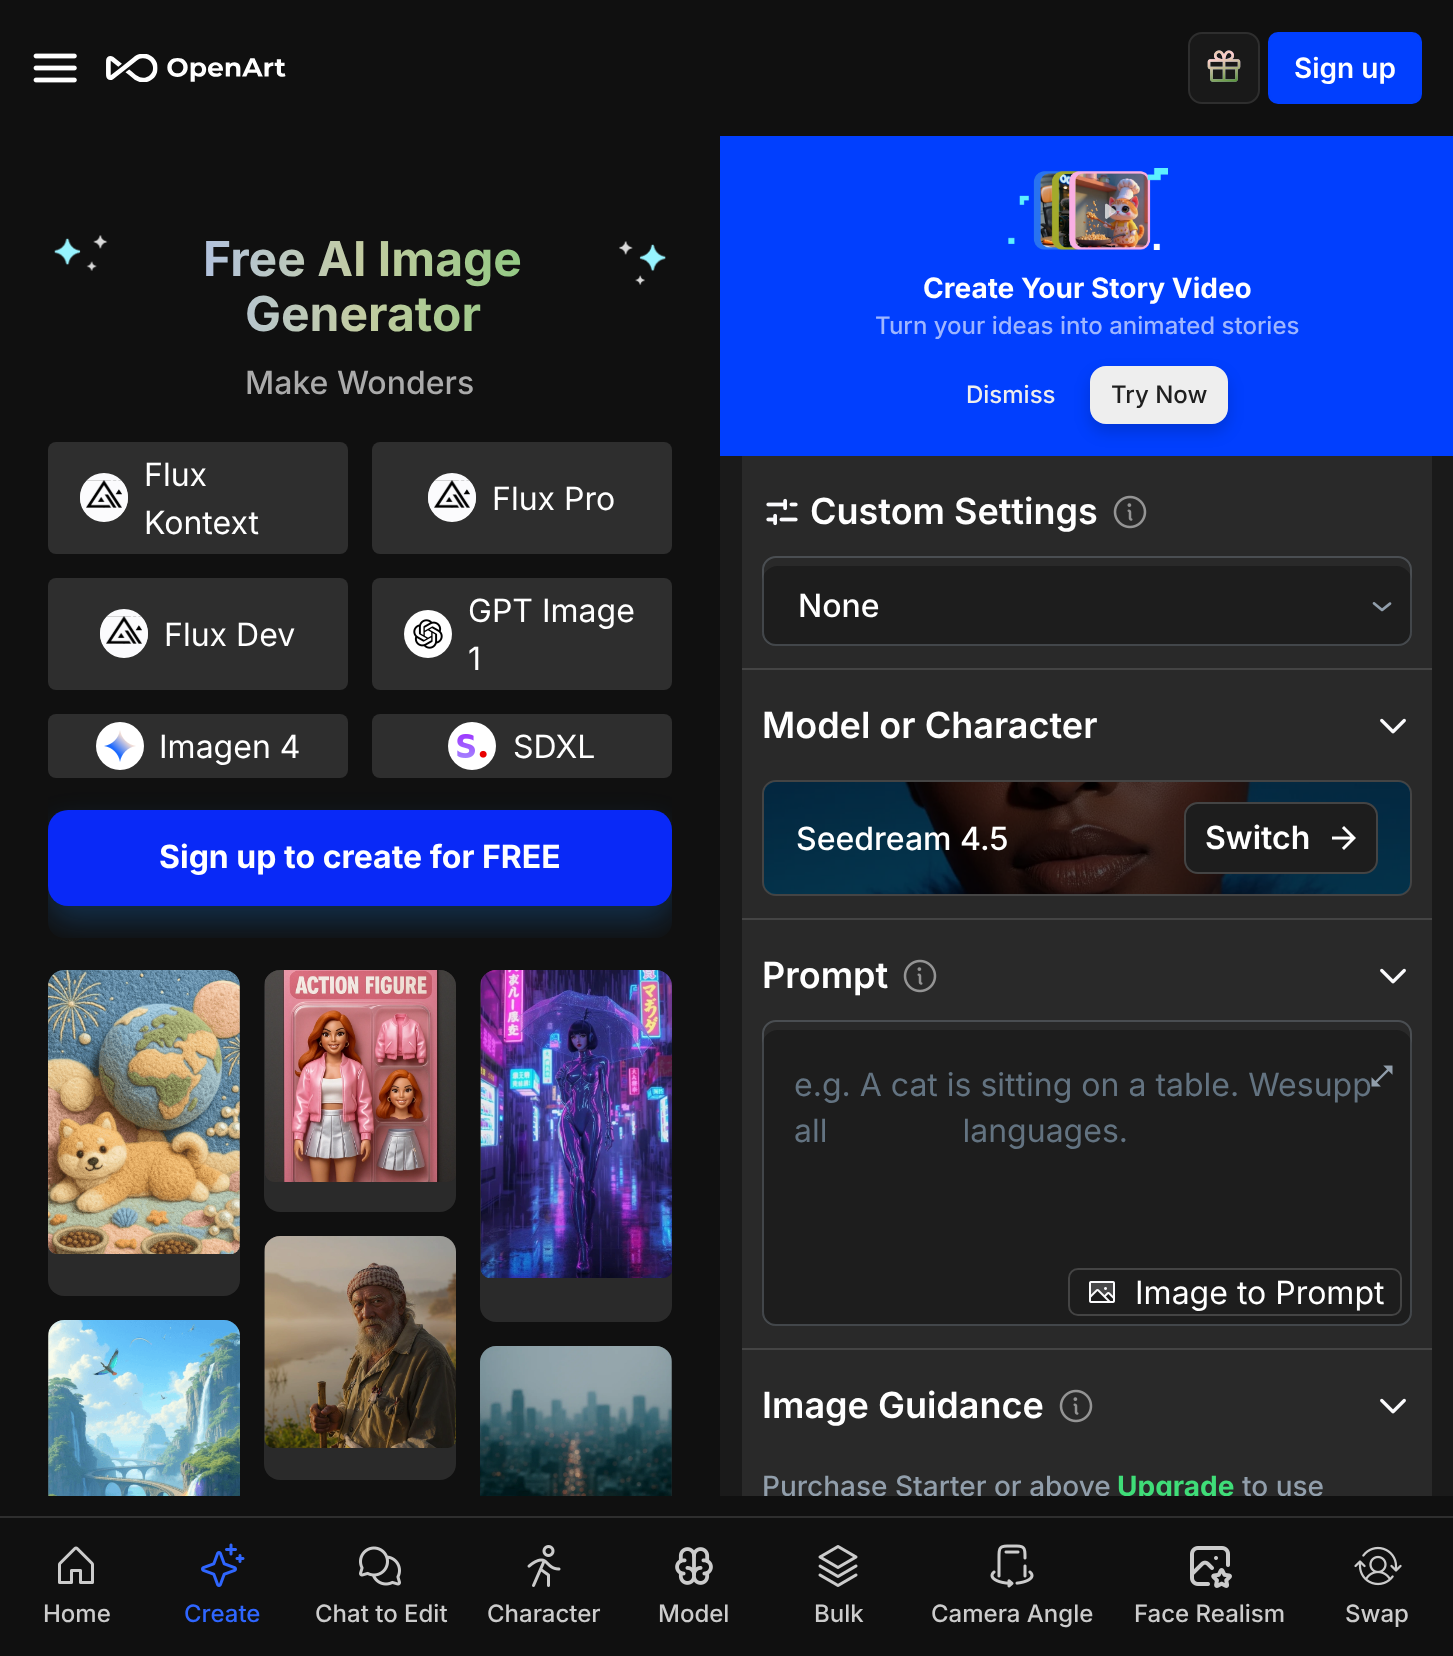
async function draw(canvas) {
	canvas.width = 1453;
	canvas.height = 1656;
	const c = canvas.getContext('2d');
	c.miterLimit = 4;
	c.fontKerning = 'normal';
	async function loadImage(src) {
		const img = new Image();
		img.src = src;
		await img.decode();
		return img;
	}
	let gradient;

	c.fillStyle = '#101010';
	c.fillRect(0, 0, 1453, 1656);
	c.drawImage(await loadImage('img1.png'), 33, 53, 44, 30);
	c.drawImage(await loadImage('img2.png'), 106, 54, 180, 28);
	c.fillStyle = '#191919';
	c.beginPath();
	c.roundRect(1189, 33, 70, 70, 13);
	c.fill();
	c.strokeStyle = '#2e2e2e';
	c.lineWidth = 2;
	c.stroke();
	c.drawImage(await loadImage('img3.png'), 1207, 50, 34, 32);
	c.fillStyle = '#013ffe';
	c.beginPath();
	c.roundRect(1269, 33, 152, 70, 9);
	c.fill();
	c.strokeStyle = '#013ffe';
	c.stroke();
	c.font = '600 28px Inter';
	c.fillStyle = '#fff';
	c.fillText('Sign up', 1294, 78);
	c.drawImage(await loadImage('img4.png'), 54, 235, 54, 36);
	c.font = 'bold 48px Inter';
	gradient = c.createLinearGradient(115, 287, 611, 287);
	gradient.addColorStop(0, '#a9bdff');
	gradient.addColorStop(0.5, '#c3cca1');
	gradient.addColorStop(1, '#78c774');
	c.fillStyle = gradient;
	c.fillText('Free AI Image', 203, 276);
	c.fillText('Generator', 245, 331);
	c.drawImage(await loadImage('img5.png'), 619, 241, 47, 44);
	c.font = '500 32px Inter';
	c.fillStyle = '#aaa';
	c.fillText('Make Wonders', 245, 394);
	c.fillStyle = '#2e2e2e';
	c.beginPath();
	c.roundRect(48, 442, 300, 112, 8);
	c.fill();
	c.fillStyle = '#fff';
	c.beginPath();
	c.arc(104, 498, 24, 0, 2 * Math.PI);
	c.fill();
	c.drawImage(await loadImage('img6.png'), 80, 473, 48, 48);
	c.font = '32px Inter';
	c.fillText('Flux', 144, 486);
	c.fillText('Kontext', 144, 534);
	c.fillStyle = '#2e2e2e';
	c.beginPath();
	c.roundRect(372, 442, 300, 112, 8);
	c.fill();
	c.fillStyle = '#fff';
	c.beginPath();
	c.arc(452, 498, 24, 0, 2 * Math.PI);
	c.fill();
	c.drawImage(await loadImage('img6.png'), 428, 473, 48, 48);
	c.fillText('Flux Pro', 492, 510);
	c.fillStyle = '#2e2e2e';
	c.beginPath();
	c.roundRect(48, 578, 300, 112, 8);
	c.fill();
	c.fillStyle = '#fff';
	c.beginPath();
	c.arc(124, 634, 24, 0, 2 * Math.PI);
	c.fill();
	c.drawImage(await loadImage('img7.png'), 100, 609, 48, 48);
	c.fillText('Flux Dev', 164, 646);
	c.fillStyle = '#2e2e2e';
	c.beginPath();
	c.roundRect(372, 578, 300, 112, 8);
	c.fill();
	c.fillStyle = '#fff';
	c.beginPath();
	c.arc(428, 634, 24, 0, 2 * Math.PI);
	c.fill();
	c.drawImage(await loadImage('img8.png'), 413, 619, 30, 30);
	c.fillText('GPT Image', 468, 622);
	c.fillText('1', 468, 670);
	c.fillStyle = '#1a1a1a';
	c.fillRect(720, 456, 733, 1040);
	c.save();
	c.beginPath();
	c.roundRect(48, 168, 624, 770, 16);
	c.clip();
	c.fillStyle = '#1890ff3d';
	c.filter = 'blur(16px)';
	c.beginPath();
	c.roundRect(48, 826, 624, 96, 20);
	c.fill();
	c.filter = 'none';
	c.restore();
	c.fillStyle = '#2e2e2e';
	c.beginPath();
	c.roundRect(48, 714, 300, 64, 8);
	c.fill();
	c.fillStyle = '#fff';
	c.beginPath();
	c.arc(120, 746, 24, 0, 2 * Math.PI);
	c.fill();
	c.drawImage(await loadImage('img9.png'), 104, 730, 32, 32);
	c.fillText('Imagen 4', 159, 758);
	c.fillStyle = '#2e2e2e';
	c.beginPath();
	c.roundRect(372, 714, 300, 64, 8);
	c.fill();
	c.fillStyle = '#fff';
	c.beginPath();
	c.arc(472, 746, 24, 0, 2 * Math.PI);
	c.fill();
	c.drawImage(await loadImage('img10.png'), 457, 734, 30, 24);
	c.fillText('SDXL', 513, 758);
	c.fillStyle = '#0929f7';
	c.beginPath();
	c.roundRect(48, 810, 624, 96, 20);
	c.fill();
	c.font = 'bold 32px Inter';
	c.fillStyle = '#fff';
	c.fillText('Sign up to create for FREE', 159, 868);
	c.fillStyle = '#2a2a2a';
	c.beginPath();
	c.roundRect(48, 970, 192, 326, 16);
	c.fill();
	c.drawImage(await loadImage('img11.png'), 48, 970, 192, 284);
	c.beginPath();
	c.roundRect(48, 1320, 192, 176, [16, 16, 0, 0]);
	c.fill();
	c.drawImage(await loadImage('img12.png'), 48, 1320, 192, 176);
	c.beginPath();
	c.roundRect(264, 970, 192, 242, 16);
	c.fill();
	c.drawImage(await loadImage('img13.png'), 264, 970, 192, 212);
	c.beginPath();
	c.roundRect(264, 1236, 192, 244, 16);
	c.fill();
	c.drawImage(await loadImage('img14.png'), 264, 1236, 192, 212);
	c.beginPath();
	c.roundRect(480, 970, 192, 352, 16);
	c.fill();
	c.drawImage(await loadImage('img15.png'), 480, 970, 192, 308);
	c.beginPath();
	c.roundRect(480, 1346, 192, 150, [16, 16, 0, 0]);
	c.fill();
	c.drawImage(await loadImage('img16.png'), 480, 1346, 192, 150);
	c.fillStyle = '#013ffe';
	c.fillRect(720, 136, 733, 320);
	c.drawImage(await loadImage('img17.png'), 1008, 168, 160, 82);
	c.font = 'bold 28px Inter';
	c.fillStyle = '#fff';
	c.fillText('Create Your Story Video', 923, 298);
	c.font = '500 24px Inter';
	c.fillStyle = '#9eb6ff';
	c.fillText('Turn your ideas into animated stories', 875, 334);
	c.fillStyle = '#eee';
	c.fillText('Dismiss', 966, 403);
	c.fillStyle = '#00000029';
	c.filter = 'blur(8px)';
	c.beginPath();
	c.roundRect(1090, 374, 138, 58, 16);
	c.fill();
	c.filter = 'none';
	c.fillStyle = '#eee';
	c.beginPath();
	c.roundRect(1090, 366, 138, 58, 16);
	c.fill();
	c.fillStyle = '#1f1f1f';
	c.fillText('Try Now', 1111, 403);
	c.fillStyle = '#292929';
	c.fillRect(742, 456, 690, 212);
	c.drawImage(await loadImage('img18.png'), 766, 498, 32, 28);
	c.font = '600 36px Inter';
	c.fillStyle = '#fff';
	c.fillText('Custom Settings', 810, 524);
	c.drawImage(await loadImage('img19.png'), 1113, 495, 34, 34);
	c.fillStyle = '#1d1d1d';
	c.beginPath();
	c.roundRect(762, 566, 650, 80, 16);
	c.fill();
	c.drawImage(await loadImage('img20.png'), 1372, 602, 20, 10);
	c.beginPath();
	c.roundRect(763, 557, 648, 88, 13);
	c.strokeStyle = '#919eab52';
	c.stroke();
	c.font = '500 32px Inter';
	c.fillStyle = '#fff';
	c.fillText('None', 798, 617);
	c.fillStyle = '#292929';
	c.fillRect(742, 670, 690, 248);
	c.fillStyle = '#444';
	c.fillRect(742, 668, 690, 2);
	c.font = '600 36px Inter';
	c.fillStyle = '#fff';
	c.fillText('Model or Character', 762, 738);
	c.drawImage(await loadImage('img21.png'), 1380, 718, 26, 16);
	c.beginPath();
	c.roundRect(763, 781, 648, 114, 13);
	c.strokeStyle = '#444';
	c.stroke();
	c.drawImage(await loadImage('img22.png'), 764, 782, 646, 112);
	c.fillStyle = '#00000099';
	c.beginPath();
	c.roundRect(764, 782, 646, 112, 12);
	c.fill();
	c.font = '500 32px Inter';
	c.fillStyle = '#fff';
	c.fillText('Seedream 4.5', 796, 850);
	c.fillStyle = '#1d1d1d';
	c.beginPath();
	c.roundRect(1185, 803, 192, 70, 13);
	c.fill();
	c.stroke();
	c.font = '600 32px Inter';
	c.fillStyle = '#fff';
	c.fillText('Switch', 1205, 849);
	c.drawImage(await loadImage('img23.png'), 1332, 826, 24, 24);
	c.fillStyle = '#292929';
	c.fillRect(742, 920, 690, 428);
	c.fillStyle = '#444';
	c.fillRect(742, 918, 690, 2);
	c.font = '600 36px Inter';
	c.fillStyle = '#fff';
	c.fillText('Prompt', 762, 988);
	c.drawImage(await loadImage('img19.png'), 903, 959, 34, 34);
	c.drawImage(await loadImage('img21.png'), 1380, 968, 26, 16);
	c.fillStyle = '#1d1d1d';
	c.beginPath();
	c.roundRect(762, 1030, 650, 296, 16);
	c.fill();
	c.beginPath();
	c.roundRect(763, 1021, 648, 304, 13);
	c.strokeStyle = '#919eab52';
	c.stroke();
	c.font = '32px Inter';
	c.fillStyle = '#637381';
	c.fillText('e.g. A cat is sitting on a table. Wesupp', 794, 1096);
	c.wordSpacing = '126px';
	c.fillText('all languages.', 794, 1142);
	c.drawImage(await loadImage('img24.png'), 1371, 1065, 22, 22);
	c.beginPath();
	c.roundRect(1069, 1269, 332, 46, 9);
	c.strokeStyle = '#444';
	c.stroke();
	c.drawImage(await loadImage('img25.png'), 1089, 1281, 26, 22);
	c.wordSpacing = '0px';
	c.fillStyle = '#fff';
	c.fillText('Image to Prompt', 1135, 1304);
	c.fillStyle = '#292929';
	c.fillRect(742, 1350, 690, 146);
	c.fillStyle = '#444';
	c.fillRect(742, 1348, 690, 2);
	c.font = '600 36px Inter';
	c.fillStyle = '#fff';
	c.fillText('Image Guidance', 762, 1418);
	c.drawImage(await loadImage('img19.png'), 1059, 1389, 34, 34);
	c.drawImage(await loadImage('img21.png'), 1380, 1398, 26, 16);
	c.save();
	c.beginPath();
	c.rect(720, 136, 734, 1360);
	c.clip();
	c.font = '500 28px Inter';
	c.fillStyle = '#919eab';
	c.fillText('Purchase Starter or above', 762, 1496);
	c.font = 'bold 28px Inter';
	c.fillStyle = '#3fdd78';
	c.fillText('Upgrade', 1117, 1496);
	c.font = '500 28px Inter';
	c.fillStyle = '#919eab';
	c.fillText('to use', 1242, 1496);
	c.restore();
	c.fillStyle = '#2e2e2e';
	c.fillRect(0, 1516, 1453, 2);
	c.drawImage(await loadImage('img26.png'), 58, 1546, 36, 38);
	c.font = '500 24px Inter';
	c.fillStyle = '#ccc';
	c.fillText('Home', 43, 1622);
	c.drawImage(await loadImage('img27.png'), 201, 1543, 44, 44);
	c.fillStyle = '#2f66ff';
	c.fillText('Create', 184, 1622);
	c.drawImage(await loadImage('img28.png'), 359, 1546, 42, 40);
	c.fillStyle = '#ccc';
	c.fillText('Chat to Edit', 315, 1622);
	c.drawImage(await loadImage('img29.png'), 527, 1545, 34, 42);
	c.fillText('Character', 487, 1622);
	c.drawImage(await loadImage('img30.png'), 675, 1547, 38, 38);
	c.fillText('Model', 658, 1622);
	c.drawImage(await loadImage('img31.png'), 818, 1545, 40, 42);
	c.fillText('Bulk', 814, 1622);
	c.drawImage(await loadImage('img32.png'), 990, 1544, 44, 44);
	c.fillText('Camera Angle', 931, 1622);
	c.drawImage(await loadImage('img33.png'), 1190, 1546, 42, 42);
	c.fillText('Face Realism', 1134, 1622);
	c.drawImage(await loadImage('img34.png'), 1354, 1546, 48, 40);
	c.fillText('Swap', 1345, 1622);
}

draw(document.querySelector('canvas'));
